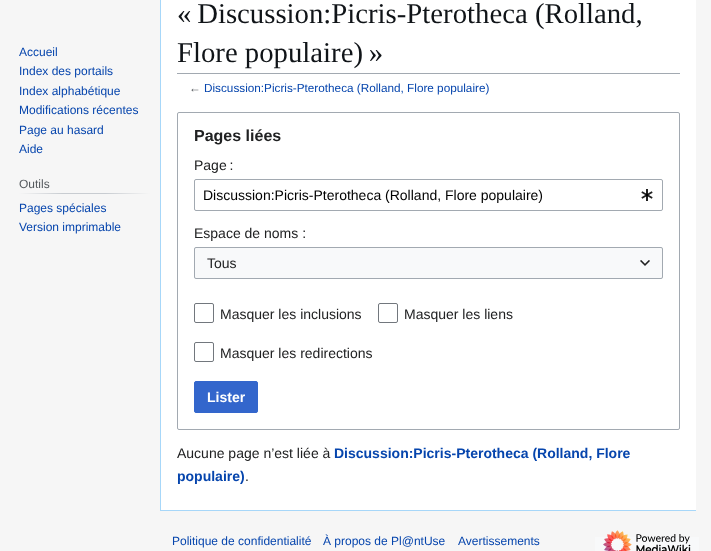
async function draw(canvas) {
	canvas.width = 711;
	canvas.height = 551;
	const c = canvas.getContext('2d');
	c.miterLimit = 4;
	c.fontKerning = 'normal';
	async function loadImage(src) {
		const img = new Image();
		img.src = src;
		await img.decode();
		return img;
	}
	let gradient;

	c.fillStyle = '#f6f6f6';
	c.fillRect(0, 0, 711, 551);
	c.font = '12px Liberation Sans';
	c.fillStyle = '#0645ad';
	for (const [text, x, y] of [
		['Accueil', 19, 56],
		['Index des portails', 19, 75],
		['Index alphabétique', 19, 95],
		['Modifications récentes', 19, 114],
		['Page au hasard', 19, 134],
		['Aide', 19, 153],
	]) {
		c.fillText(text, x, y);
	}
	gradient = c.createLinearGradient(19, 194, 150, 194);
	gradient.addColorStop(0, '#f6f6f6');
	gradient.addColorStop(0.33, '#c8ccd1');
	gradient.addColorStop(0.66, '#c8ccd1');
	gradient.addColorStop(1, '#f6f6f6');
	c.fillStyle = gradient;
	c.fillRect(19, 193, 131, 1);
	c.fillStyle = '#54595d';
	c.fillText('Outils', 19, 188);
	c.fillStyle = '#0645ad';
	c.fillText('Pages spéciales', 19, 212);
	c.fillText('Version imprimable', 19, 231);
	for (const [x, y, w, h, color] of [
		[161, 0, 535, 510, '#fff'],
		[160, 510, 536, 1, '#a7d7f9'],
		[160, 0, 1, 511, '#a7d7f9'],
		[177, 73, 503, 1, '#a2a9b1'],
	]) {
		c.fillStyle = color;
		c.fillRect(x, y, w, h);
	}
	c.font = '28.75px Liberation Serif';
	c.fillStyle = '#101418';
	c.fillText('« Discussion:Picris-Pterotheca (Rolland,', 177, 23);
	c.fillText('Flore populaire) »', 177, 62);
	c.font = '11.75px Liberation Sans';
	c.fillStyle = '#54595d';
	c.fillText('←', 189, 92);
	c.fillStyle = '#0645ad';
	c.fillText('Discussion:Picris-Pterotheca (Rolland, Flore populaire)', 204, 92);
	c.beginPath();
	c.roundRect(177.5, 112.5, 502, 317, 1.5);
	c.strokeStyle = '#a2a9b1';
	c.stroke();
	c.font = 'bold 16px Liberation Sans';
	c.fillStyle = '#202122';
	c.fillText('Pages liées', 194, 141);
	c.font = '14px Liberation Sans';
	c.fillText('Page :', 194, 170);
	c.beginPath();
	c.roundRect(194.5, 179.5, 468, 31, 1.5);
	c.stroke();
	c.fillStyle = '#000';
	c.fillText('Discussion:Picris-Pterotheca (Rolland, Flore populaire)', 203, 200);
	c.drawImage(await loadImage('img1.png'), 641, 189, 12, 12);
	c.fillStyle = '#202122';
	c.fillText('Espace de noms :', 194, 238);
	c.fillStyle = '#f8f9fa';
	c.fillRect(194, 247, 469, 32);
	c.beginPath();
	c.roundRect(194.5, 247.5, 468, 31, 1.5);
	c.stroke();
	c.fillStyle = '#202122';
	c.fillText('Tous', 207, 268);
	c.drawImage(await loadImage('img2.png'), 640, 260, 10, 6);
	c.beginPath();
	c.roundRect(194.5, 303.5, 19, 19, 1.5);
	c.strokeStyle = '#72777d';
	c.stroke();
	c.fillText('Masquer les inclusions', 220, 319);
	c.beginPath();
	c.roundRect(378.5, 303.5, 19, 19, 1.5);
	c.stroke();
	c.fillText('Masquer les liens', 404, 319);
	c.beginPath();
	c.roundRect(194.5, 342.5, 19, 19, 1.5);
	c.stroke();
	c.fillText('Masquer les redirections', 220, 358);
	c.fillStyle = '#36c';
	c.beginPath();
	c.roundRect(194.5, 381.5, 63, 31, 1.5);
	c.fill();
	c.strokeStyle = '#36c';
	c.stroke();
	c.font = 'bold 14px Liberation Sans';
	c.fillStyle = '#fff';
	c.fillText('Lister', 207, 402);
	c.font = '14px Liberation Sans';
	c.fillStyle = '#202122';
	c.fillText('Aucune page n’est liée à', 177, 458);
	c.font = 'bold 14px Liberation Sans';
	c.fillStyle = '#0645ad';
	c.fillText('Discussion:Picris-Pterotheca (Rolland, Flore', 334, 458);
	c.fillText('populaire)', 177, 481);
	c.font = '14px Liberation Sans';
	c.fillStyle = '#202122';
	c.fillText('.', 245, 481);
	c.font = '12px Liberation Sans';
	c.fillStyle = '#0645ad';
	for (const [text, x, y] of [
		['Politique de confidentialité', 172, 545],
		['À propos de Pl@ntUse', 323, 545],
		['Avertissements', 458, 545],
	]) {
		c.fillText(text, x, y);
	}
	c.fillStyle = '#f8f9fa';
	c.fillRect(595, 537, 104, 14);
	c.drawImage(await loadImage('img3.png'), 603, 530, 88, 21);
}

draw(document.querySelector('canvas'));
